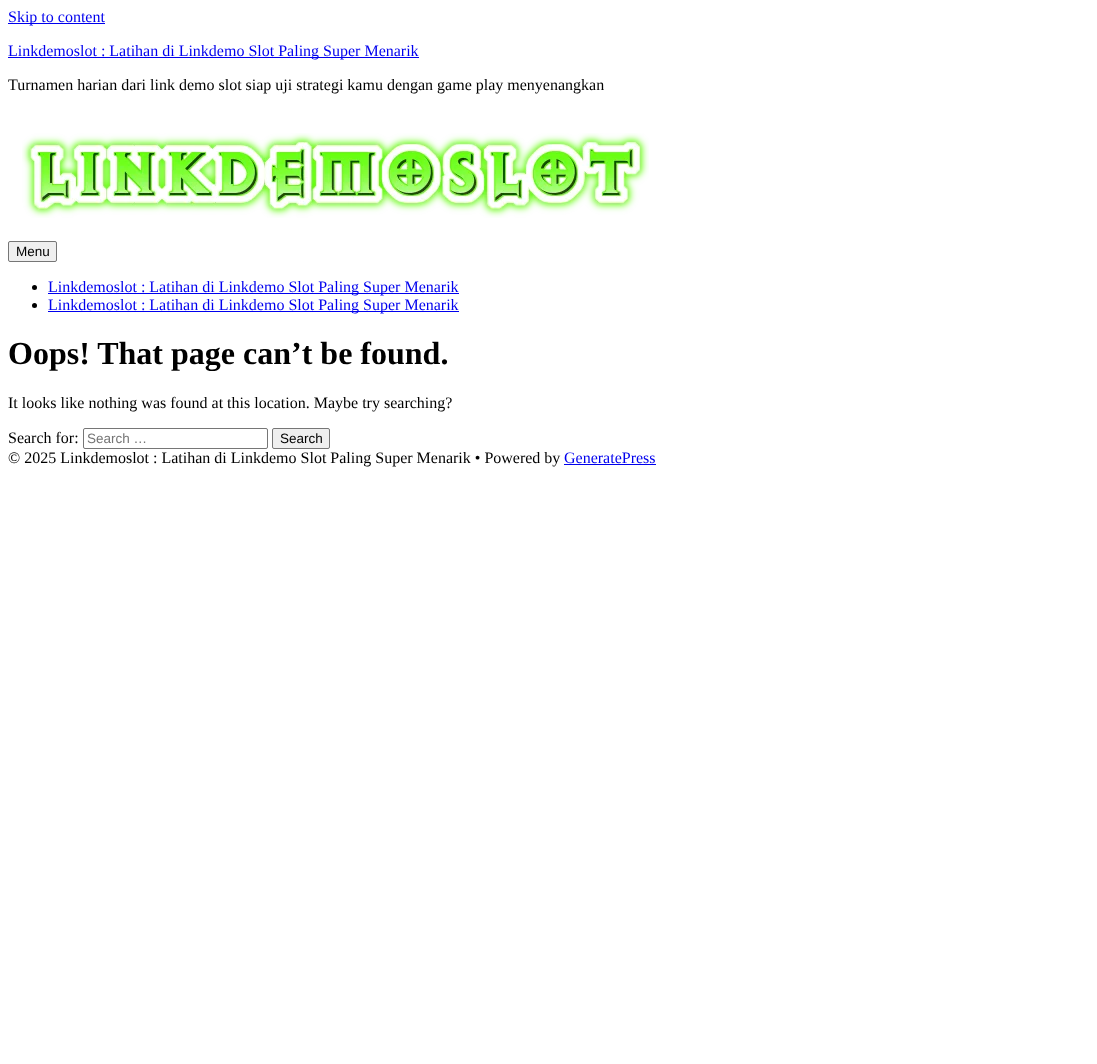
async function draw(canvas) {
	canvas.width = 1097;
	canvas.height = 1064;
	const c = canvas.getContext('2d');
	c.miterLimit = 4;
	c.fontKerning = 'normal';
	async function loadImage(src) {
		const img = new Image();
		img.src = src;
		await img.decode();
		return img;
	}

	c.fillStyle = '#fff';
	c.fillRect(0, 0, 1097, 1064);
	c.fillStyle = '#00e';
	c.fillRect(8, 23, 97, 1);
	c.font = '16px Liberation Serif';
	c.fillText('Skip to content', 8, 22);
	c.fillRect(8, 57, 411, 1);
	c.fillText('Linkdemoslot : Latihan di Linkdemo Slot Paling Super Menarik', 8, 56);
	c.fillStyle = '#000';
	c.fillText('Turnamen harian dari link demo slot siap uji strategi kamu dengan game play menyenangkan', 8, 90);
	c.drawImage(await loadImage('img1.png'), 22, 133, 627, 85);
	c.fillStyle = '#efefef';
	c.beginPath();
	c.roundRect(8.5, 241.5, 48, 20, 1.5);
	c.fill();
	c.strokeStyle = '#767676';
	c.stroke();
	c.font = '13.5px Liberation Sans';
	c.fillStyle = '#000';
	c.fillText('Menu', 16, 256);
	c.beginPath();
	c.arc(34.5, 287.5, 2.5, 0, 2 * Math.PI);
	c.fill();
	c.fillStyle = '#00e';
	c.fillRect(48, 293, 411, 1);
	c.font = '16px Liberation Serif';
	c.fillText('Linkdemoslot : Latihan di Linkdemo Slot Paling Super Menarik', 48, 292);
	c.fillStyle = '#000';
	c.beginPath();
	c.arc(34.5, 305.5, 2.5, 0, 2 * Math.PI);
	c.fill();
	c.fillStyle = '#00e';
	c.fillRect(48, 311, 411, 1);
	c.fillText('Linkdemoslot : Latihan di Linkdemo Slot Paling Super Menarik', 48, 310);
	c.font = 'bold 32px Liberation Serif';
	c.fillStyle = '#000';
	c.fillText('Oops! That page can’t be found.', 8, 364);
	c.font = '16px Liberation Serif';
	c.fillText('It looks like nothing was found at this location. Maybe try searching?', 8, 408);
	c.fillText('Search for:', 8, 443);
	c.beginPath();
	c.roundRect(83.5, 428.5, 184, 20, 1.5);
	c.stroke();
	c.font = '13.5px Liberation Sans';
	c.fillStyle = '#757575';
	c.fillText('Search …', 87, 443);
	c.fillStyle = '#efefef';
	c.beginPath();
	c.roundRect(272.5, 428.5, 57, 20, 1.5);
	c.fill();
	c.stroke();
	c.fillStyle = '#000';
	c.fillText('Search', 280, 443);
	c.font = '16px Liberation Serif';
	c.fillText('© 2025 Linkdemoslot : Latihan di Linkdemo Slot Paling Super Menarik • Powered by', 8, 463);
	c.fillStyle = '#00e';
	c.fillText('GeneratePress', 564, 463);
	c.fillRect(564, 464, 92, 1);
}

draw(document.querySelector('canvas'));
